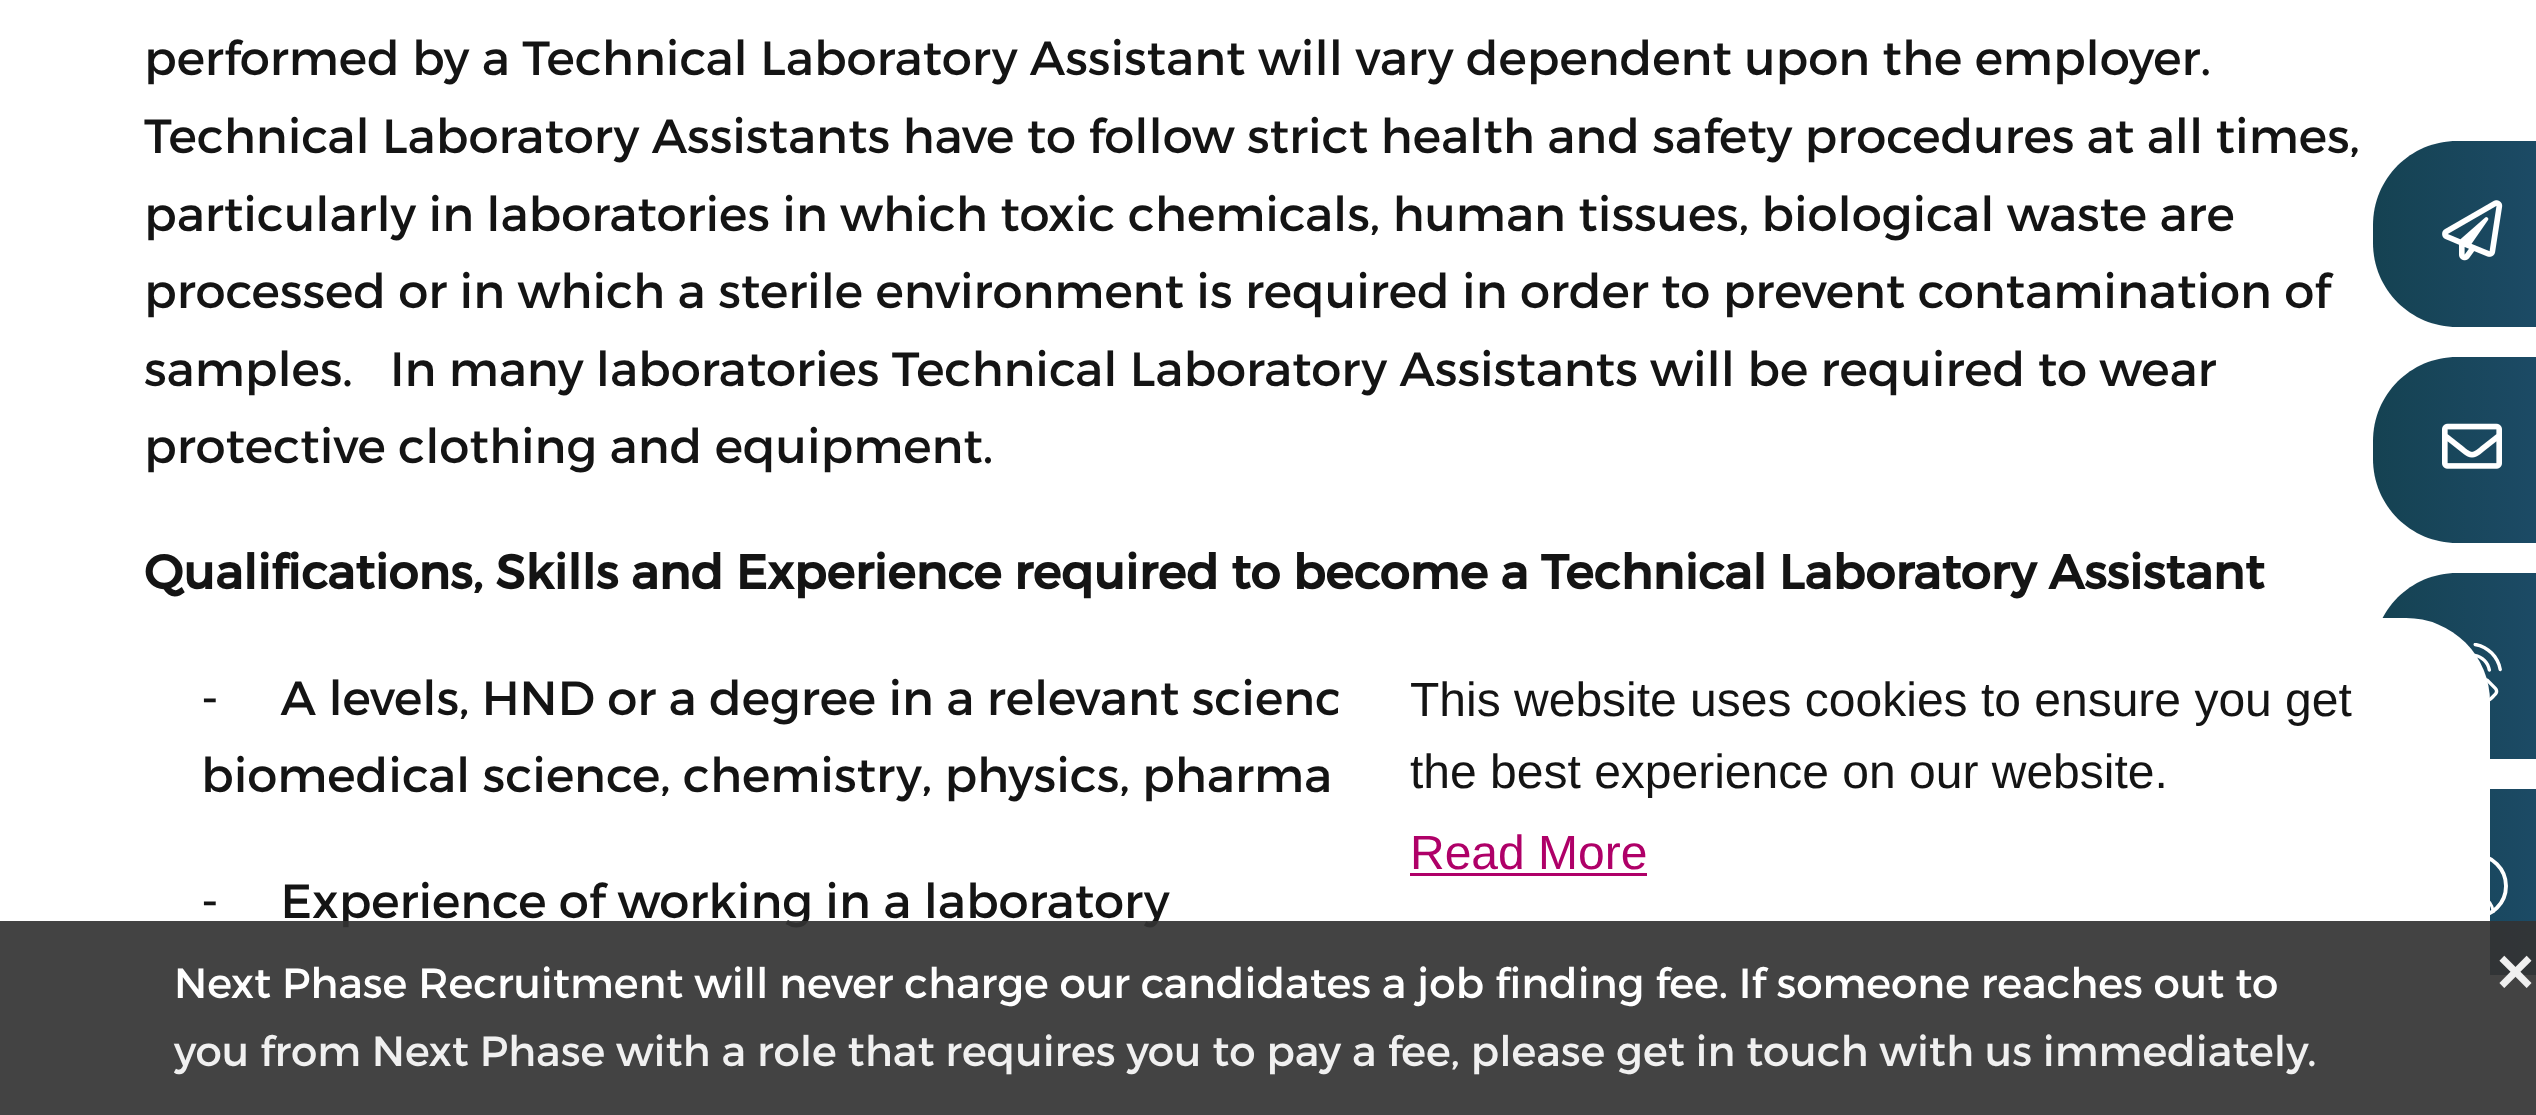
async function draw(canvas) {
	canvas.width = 2536;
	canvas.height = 1115;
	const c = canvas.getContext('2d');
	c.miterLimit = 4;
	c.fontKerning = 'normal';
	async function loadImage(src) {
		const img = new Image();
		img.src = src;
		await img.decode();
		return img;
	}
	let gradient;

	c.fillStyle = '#fff';
	c.fillRect(0, 0, 2536, 1115);
	c.font = '48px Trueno';
	c.fillStyle = '#141414';
	for (const [text, x, y] of [
		['performed by a Technical Laboratory Assistant will vary dependent upon the employer.', 144, 75],
		['Technical Laboratory Assistants have to follow strict health and safety procedures at all times,', 144, 153],
		['particularly in laboratories in which toxic chemicals, human tissues, biological waste are', 144, 231],
		['processed or in which a sterile environment is required in order to prevent contamination of', 144, 308],
		['samples.   In many laboratories Technical Laboratory Assistants will be required to wear', 144, 386],
		['protective clothing and equipment.', 144, 463],
	]) {
		c.fillText(text, x, y);
	}
	c.font = 'bold 48px Trueno';
	c.fillText('Qualifications, Skills and Experience required to become a Technical Laboratory Assistant', 144, 589);
	c.font = '48px Trueno';
	for (const [text, x, y] of [
		['-     A levels, HND or a degree in a relevant scienc', 201, 715],
		['biomedical science, chemistry, physics, pharma', 201, 792],
		['-     Experience of working in a laboratory', 201, 918],
	]) {
		c.fillText(text, x, y);
	}
	gradient = c.createLinearGradient(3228, 235, 2373, 235);
	gradient.addColorStop(0, '#396eb6');
	gradient.addColorStop(1, '#154252');
	c.fillStyle = gradient;
	c.beginPath();
	c.moveTo(2457, 141);
	c.lineTo(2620, 141);
	c.lineTo(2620, 327);
	c.lineTo(2457, 327);
	c.bezierCurveTo(2410.5, 327, 2373, 289.5, 2373, 243);
	c.lineTo(2373, 225);
	c.bezierCurveTo(2373, 178.5, 2410.5, 141, 2457, 141);
	c.closePath();
	c.fill();
	c.drawImage(await loadImage('img1.png'), 2442, 200, 61, 61);
	gradient = c.createLinearGradient(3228, 451, 2373, 451);
	gradient.addColorStop(0, '#396eb6');
	gradient.addColorStop(1, '#154252');
	c.fillStyle = gradient;
	c.beginPath();
	c.moveTo(2457, 357);
	c.lineTo(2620, 357);
	c.lineTo(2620, 543);
	c.lineTo(2457, 543);
	c.bezierCurveTo(2410.5, 543, 2373, 505.5, 2373, 459);
	c.lineTo(2373, 441);
	c.bezierCurveTo(2373, 394.5, 2410.5, 357, 2457, 357);
	c.closePath();
	c.fill();
	c.drawImage(await loadImage('img2.png'), 2442, 423, 60, 46);
	gradient = c.createLinearGradient(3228, 667, 2373, 667);
	gradient.addColorStop(0, '#396eb6');
	gradient.addColorStop(1, '#154252');
	c.fillStyle = gradient;
	c.beginPath();
	c.moveTo(2457, 573);
	c.lineTo(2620, 573);
	c.lineTo(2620, 759);
	c.lineTo(2457, 759);
	c.bezierCurveTo(2410.5, 759, 2373, 721.5, 2373, 675);
	c.lineTo(2373, 657);
	c.bezierCurveTo(2373, 610.5, 2410.5, 573, 2457, 573);
	c.closePath();
	c.fill();
	c.drawImage(await loadImage('img3.png'), 2473, 643, 29, 59);
	gradient = c.createLinearGradient(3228, 883, 2373, 883);
	gradient.addColorStop(0, '#396eb6');
	gradient.addColorStop(1, '#154252');
	c.fillStyle = gradient;
	c.fillRect(2490, 789, 46, 186);
	c.beginPath();
	c.arc(2475, 886, 31, 0, 2 * Math.PI);
	c.strokeStyle = '#fff';
	c.lineWidth = 3.9;
	c.stroke();
	c.beginPath();
	c.moveTo(2493, 913);
	c.bezierCurveTo(2493, 903, 2485, 895, 2475, 895);
	c.bezierCurveTo(2465, 895, 2457, 903, 2457, 913);
	c.lineWidth = 3;
	c.stroke();
	c.fillStyle = '#fff';
	c.beginPath();
	c.roundRect(1338, 618, 1152, 450, 84);
	c.fill();
	c.fillStyle = '#333333eb';
	c.fillRect(0, 921, 2536, 194);
	c.font = '42px Trueno';
	c.fillStyle = '#fff';
	c.fillText('Next Phase Recruitment will never charge our candidates a job finding fee. If someone reaches out to', 174, 998);
	c.fillStyle = '#f0f0f0';
	c.fillText('you from Next Phase with a role that requires you to pay a fee, please get in touch with us immediately.', 174, 1066);
	c.font = '90px Trueno';
	c.fillText('×', 2493, 1001);
	c.font = '48px Liberation Sans';
	c.fillStyle = '#141414';
	c.fillText('This website uses cookies to ensure you get', 1410, 716);
	c.fillText('the best experience on our website.', 1410, 788);
	c.fillStyle = '#af0068';
	c.fillText('Read More', 1410, 869);
	c.fillRect(1410, 873, 237, 3);
}

draw(document.querySelector('canvas'));
